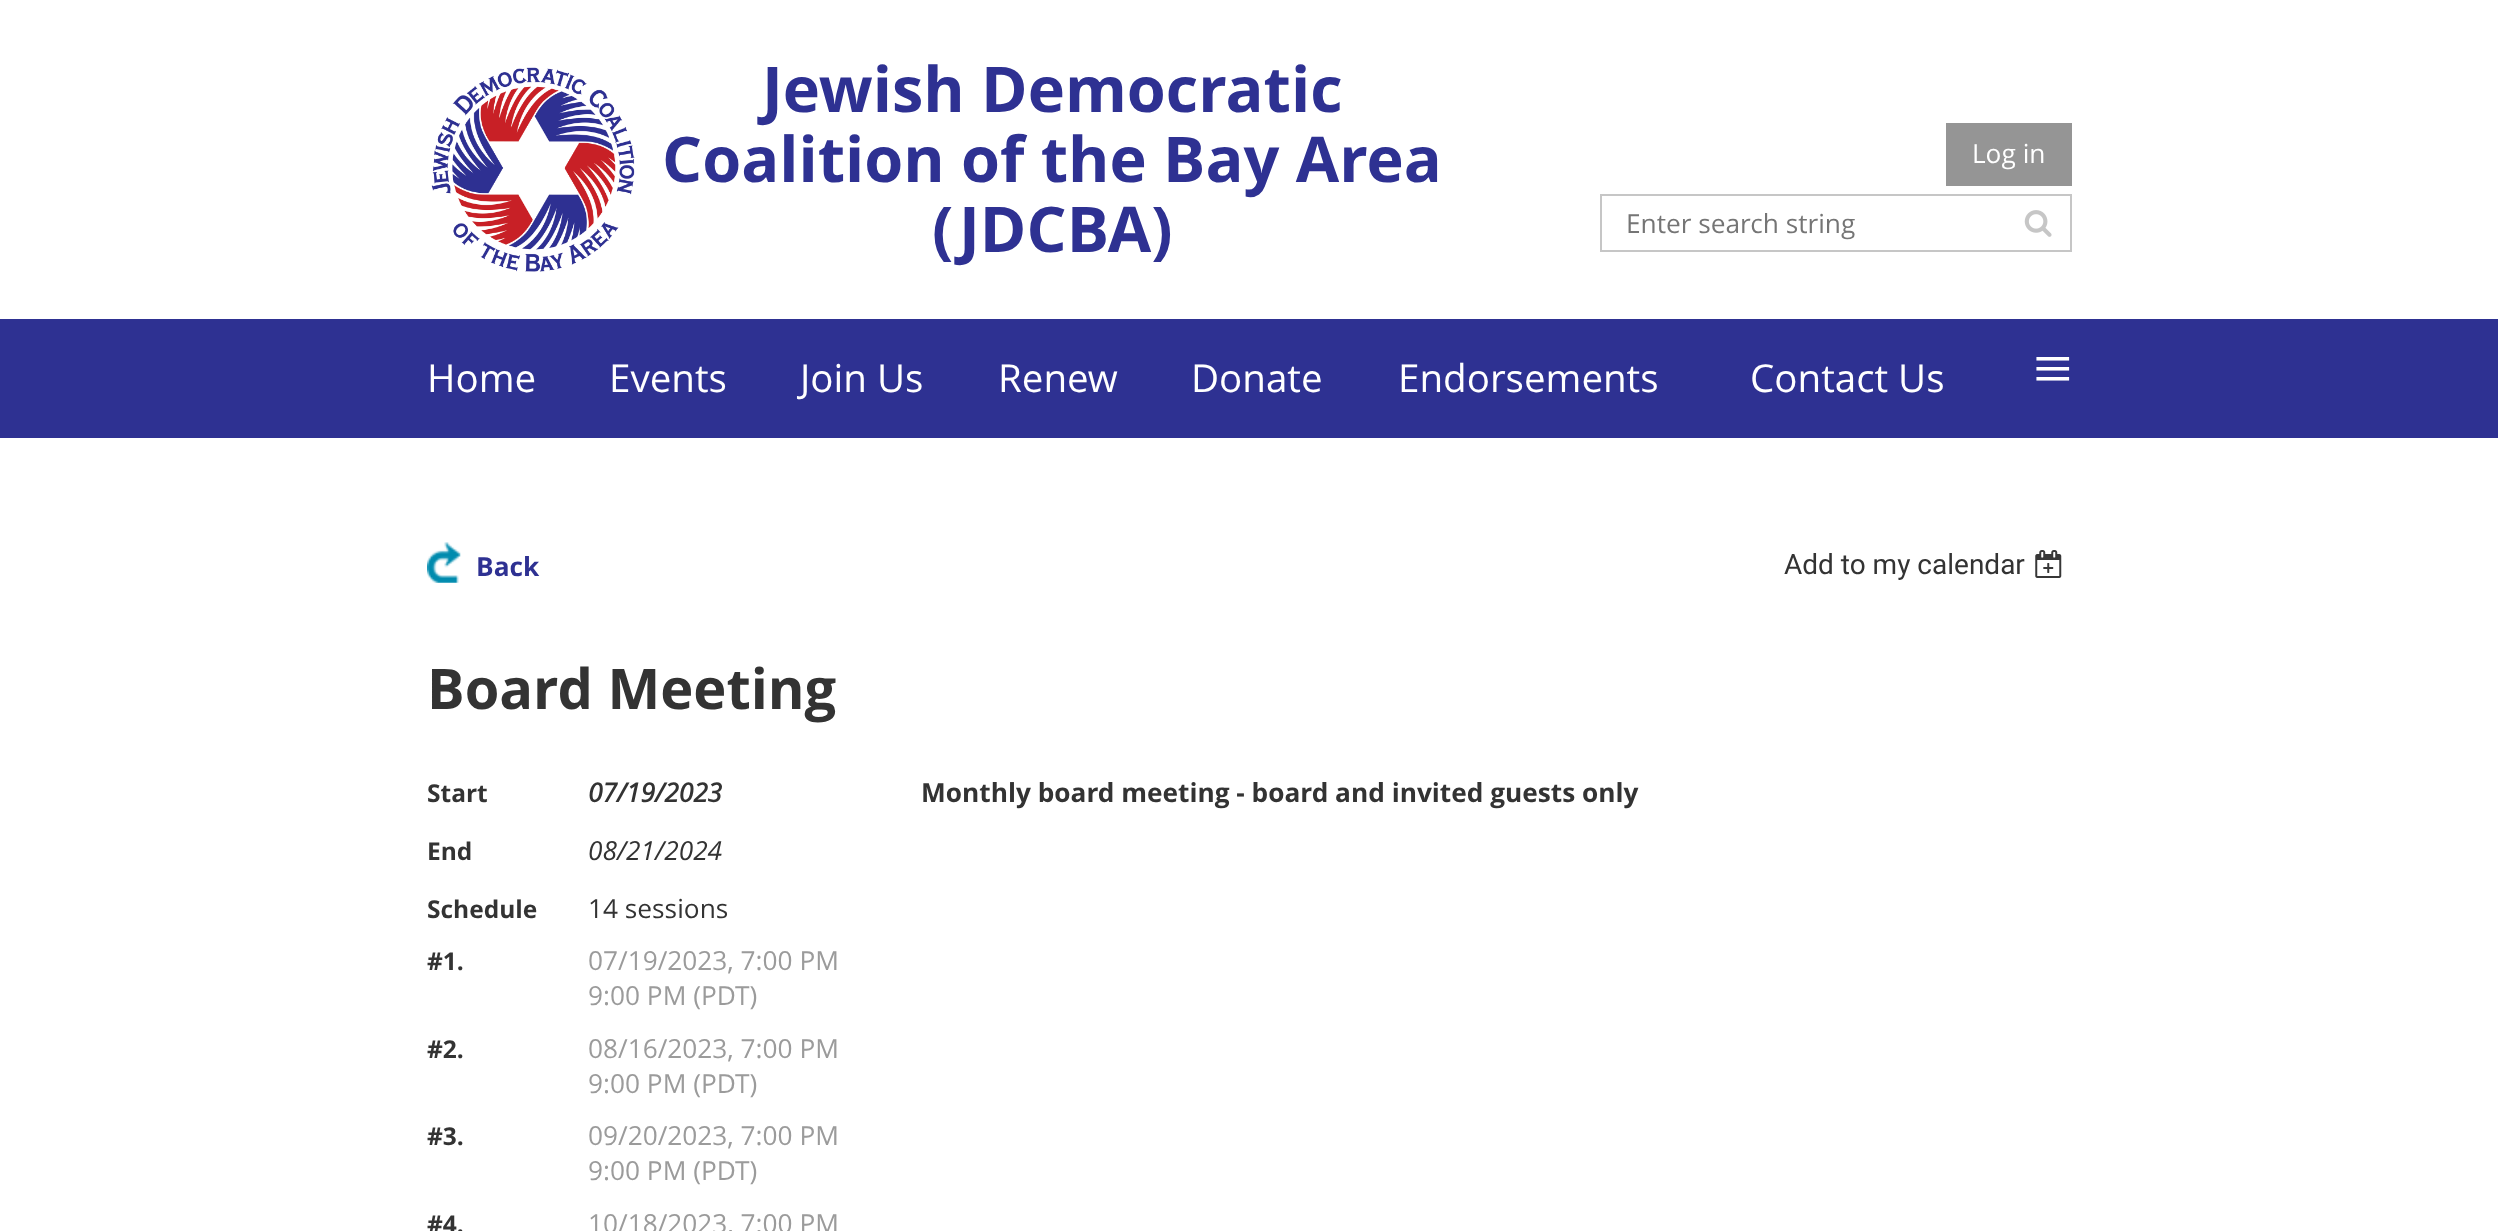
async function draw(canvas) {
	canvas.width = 2498;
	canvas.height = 1231;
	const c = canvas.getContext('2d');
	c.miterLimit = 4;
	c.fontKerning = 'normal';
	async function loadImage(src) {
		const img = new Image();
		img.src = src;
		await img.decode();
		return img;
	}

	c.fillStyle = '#fff';
	c.fillRect(0, 0, 2498, 1231);
	c.drawImage(await loadImage('img1.png'), 431, 67, 204, 205);
	c.font = 'bold 63px Open Sans';
	c.fillStyle = '#2e3192';
	for (const [text, x, y] of [
		['Jewish Democratic', 762, 112],
		['Coalition of the Bay Area', 662, 182],
		['(JDCBA)', 932, 252],
	]) {
		c.fillText(text, x, y);
	}
	c.fillStyle = '#959595';
	c.fillRect(1946, 123, 126, 63);
	c.font = '26.25px Open Sans';
	c.fillStyle = '#fff';
	c.fillText('Log in', 1972, 163);
	c.strokeStyle = '#c6c6c6';
	c.lineWidth = 2;
	c.strokeRect(1601, 195, 470, 56);
	c.fillStyle = '#757575';
	c.fillText('Enter search string', 1626, 233);
	c.drawImage(await loadImage('img2.png'), 2024, 210, 28, 27);
	c.fillStyle = '#2e3192';
	c.fillRect(0, 319, 2498, 119);
	c.font = '38.5px Open Sans';
	c.fillStyle = '#fff';
	for (const [text, x, y] of [
		['Home', 427, 392],
		['Events', 609, 392],
		['Join Us', 800, 392],
		['Renew', 998, 392],
		['Donate', 1191, 392],
		['Endorsements', 1398, 392],
		['Contact Us', 1750, 392],
	]) {
		c.fillText(text, x, y);
	}
	c.font = '70px Liberation Serif';
	c.fillText('≡', 2033, 392);
	c.drawImage(await loadImage('img3.png'), 427, 542, 34, 41);
	c.font = 'bold 26.25px Open Sans';
	c.fillStyle = '#2e3192';
	c.fillText('Back', 476, 576);
	c.font = '28px Roboto';
	c.fillStyle = '#333';
	c.fillText('Add to my calendar', 1784, 574);
	c.drawImage(await loadImage('img4.png'), 2035, 550, 27, 28);
	c.font = 'bold 56px Open Sans';
	c.fillText('Board Meeting', 427, 709);
	c.font = 'bold 24.5px Open Sans';
	c.fillText('Start', 427, 802);
	c.font = 'italic bold 26.25px Open Sans';
	c.fillText('07/19/2023', 588, 802);
	c.font = 'bold 24.5px Open Sans';
	c.fillText('End', 427, 860);
	c.font = 'italic 26.25px Open Sans';
	c.fillText('08/21/2024', 588, 860);
	c.font = 'bold 24.5px Open Sans';
	c.fillText('Schedule', 427, 918);
	c.font = '26.25px Open Sans';
	c.fillText('14 sessions', 588, 918);
	c.font = 'bold 24.5px Open Sans';
	c.fillText('#1.', 427, 970);
	c.font = '26.25px Open Sans';
	c.fillStyle = '#9b9b9b';
	c.fillText('07/19/2023, 7:00 PM', 588, 970);
	c.fillText('9:00 PM (PDT)', 588, 1005);
	c.font = 'bold 24.5px Open Sans';
	c.fillStyle = '#333';
	c.fillText('#2.', 427, 1058);
	c.font = '26.25px Open Sans';
	c.fillStyle = '#9b9b9b';
	c.fillText('08/16/2023, 7:00 PM', 588, 1058);
	c.fillText('9:00 PM (PDT)', 588, 1093);
	c.font = 'bold 24.5px Open Sans';
	c.fillStyle = '#333';
	c.fillText('#3.', 427, 1145);
	c.font = '26.25px Open Sans';
	c.fillStyle = '#9b9b9b';
	c.fillText('09/20/2023, 7:00 PM', 588, 1145);
	c.fillText('9:00 PM (PDT)', 588, 1180);
	c.font = 'bold 24.5px Open Sans';
	c.fillStyle = '#333';
	c.fillText('#4.', 427, 1233);
	c.font = '26.25px Open Sans';
	c.fillStyle = '#9b9b9b';
	c.fillText('10/18/2023, 7:00 PM', 588, 1233);
	c.font = 'bold 26.25px Open Sans';
	c.fillStyle = '#333';
	c.fillText('Monthly board meeting - board and invited guests only', 921, 802);
}

draw(document.querySelector('canvas'));
